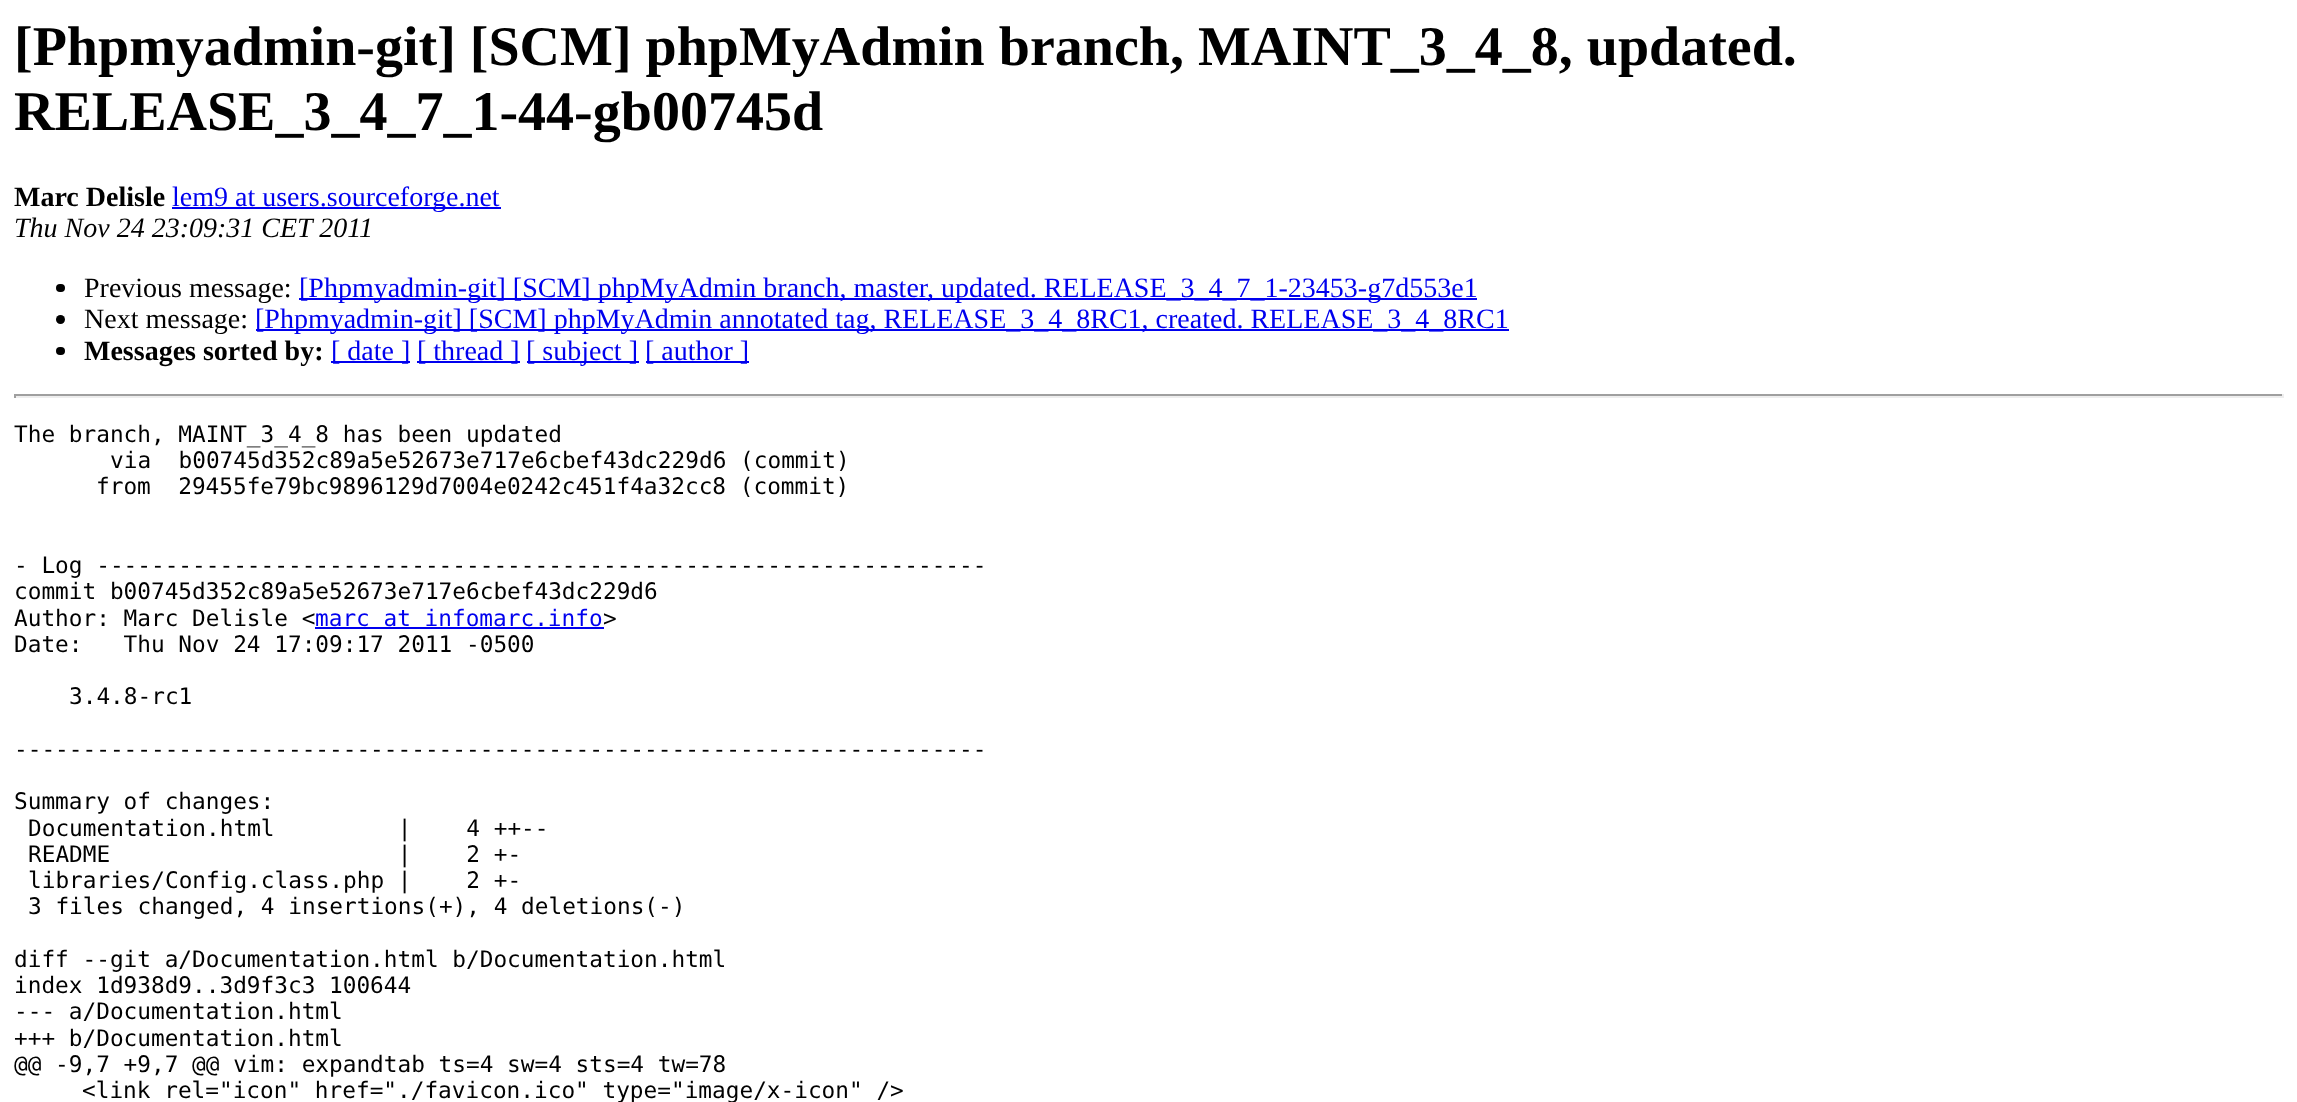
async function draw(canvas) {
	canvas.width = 2297;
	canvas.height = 1102;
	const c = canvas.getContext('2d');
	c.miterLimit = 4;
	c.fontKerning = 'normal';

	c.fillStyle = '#fff';
	c.fillRect(0, 0, 2297, 1102);
	c.font = 'bold 56px Liberation Serif';
	c.fillStyle = '#000';
	c.fillText('[Phpmyadmin-git] [SCM] phpMyAdmin branch, MAINT_3_4_8, updated.', 14, 65);
	c.fillText('RELEASE_3_4_7_1-44-gb00745d', 14, 130);
	c.font = 'bold 28px Liberation Serif';
	c.fillText('Marc Delisle', 14, 206);
	c.fillStyle = '#00e';
	c.fillRect(172, 207, 329, 2);
	c.font = '28px Liberation Serif';
	c.fillText('lem9 at users.sourceforge.net', 172, 206);
	c.font = 'italic 28px Liberation Serif';
	c.fillStyle = '#000';
	c.fillText('Thu Nov 24 23:09:31 CET 2011', 14, 237);
	c.beginPath();
	c.roundRect(56, 284, 9, 8, 4);
	c.fill();
	c.font = '28px Liberation Serif';
	c.fillText('Previous message:', 84, 297);
	c.fillStyle = '#00e';
	c.fillRect(299, 298, 1178, 2);
	c.fillText('[Phpmyadmin-git] [SCM] phpMyAdmin branch, master, updated. RELEASE_3_4_7_1-23453-g7d553e1', 299, 297);
	c.fillStyle = '#000';
	c.beginPath();
	c.arc(60.5, 319.5, 4.5, 0, 2 * Math.PI);
	c.fill();
	c.fillText('Next message:', 84, 328);
	c.fillStyle = '#00e';
	c.fillRect(256, 329, 1253, 2);
	c.fillText('[Phpmyadmin-git] [SCM] phpMyAdmin annotated tag, RELEASE_3_4_8RC1, created. RELEASE_3_4_8RC1', 255, 328);
	c.fillStyle = '#000';
	c.beginPath();
	c.roundRect(56, 347, 9, 8, 4);
	c.fill();
	c.font = 'bold 28px Liberation Serif';
	c.fillText('Messages sorted by:', 84, 360);
	c.fillStyle = '#00e';
	c.fillRect(331, 361, 79, 2);
	c.font = '28px Liberation Serif';
	c.fillText('[ date ]', 331, 360);
	c.fillRect(417, 361, 103, 2);
	c.fillText('[ thread ]', 417, 360);
	c.fillRect(527, 361, 112, 2);
	c.fillText('[ subject ]', 526, 360);
	c.fillRect(646, 361, 103, 2);
	c.fillText('[ author ]', 645, 360);
	for (const [x, y, w, h, color] of [
		[14, 394, 2270, 2, '#9f9f9f'],
		[2282, 394, 2, 4, '#eee'],
		[14, 396, 2270, 2, '#eee'],
		[14, 394, 2, 4, '#9f9f9f'],
	]) {
		c.fillStyle = color;
		c.fillRect(x, y, w, h);
	}
	c.font = '22.75px DejaVu Sans Mono';
	c.fillStyle = '#000';
	for (const [text, x, y] of [
		['The branch, MAINT_3_4_8 has been updated', 14, 442],
		['via  b00745d352c89a5e52673e717e6cbef43dc229d6 (commit)', 110, 468],
		['from  29455fe79bc9896129d7004e0242c451f4a32cc8 (commit)', 96, 494],
		['- Log -----------------------------------------------------------------', 14, 573],
		['commit b00745d352c89a5e52673e717e6cbef43dc229d6', 14, 599],
		['Author: Marc Delisle <', 14, 626],
	]) {
		c.fillText(text, x, y);
	}
	c.fillStyle = '#00e';
	c.fillText('marc at infomarc.info', 315, 626);
	c.fillRect(315, 627, 289, 2);
	c.fillStyle = '#000';
	for (const [text, x, y] of [
		['>', 603, 626],
		['Date:   Thu Nov 24 17:09:17 2011 -0500', 14, 652],
		['3.4.8-rc1', 69, 704],
		['-----------------------------------------------------------------------', 14, 757],
		['Summary of changes:', 14, 809],
		['Documentation.html         |    4 ++--', 28, 836],
		['README                     |    2 +-', 28, 862],
		['libraries/Config.class.php |    2 +-', 28, 888],
		['3 files changed, 4 insertions(+), 4 deletions(-)', 28, 914],
		['diff --git a/Documentation.html b/Documentation.html', 14, 967],
		['index 1d938d9..3d9f3c3 100644', 14, 993],
		['--- a/Documentation.html', 14, 1019],
		['+++ b/Documentation.html', 14, 1046],
		['@@ -9,7 +9,7 @@ vim: expandtab ts=4 sw=4 sts=4 tw=78', 14, 1072],
		['<link rel="icon" href="./favicon.ico" type="image/x-icon" />', 82, 1098],
	]) {
		c.fillText(text, x, y);
	}
}

draw(document.querySelector('canvas'));
